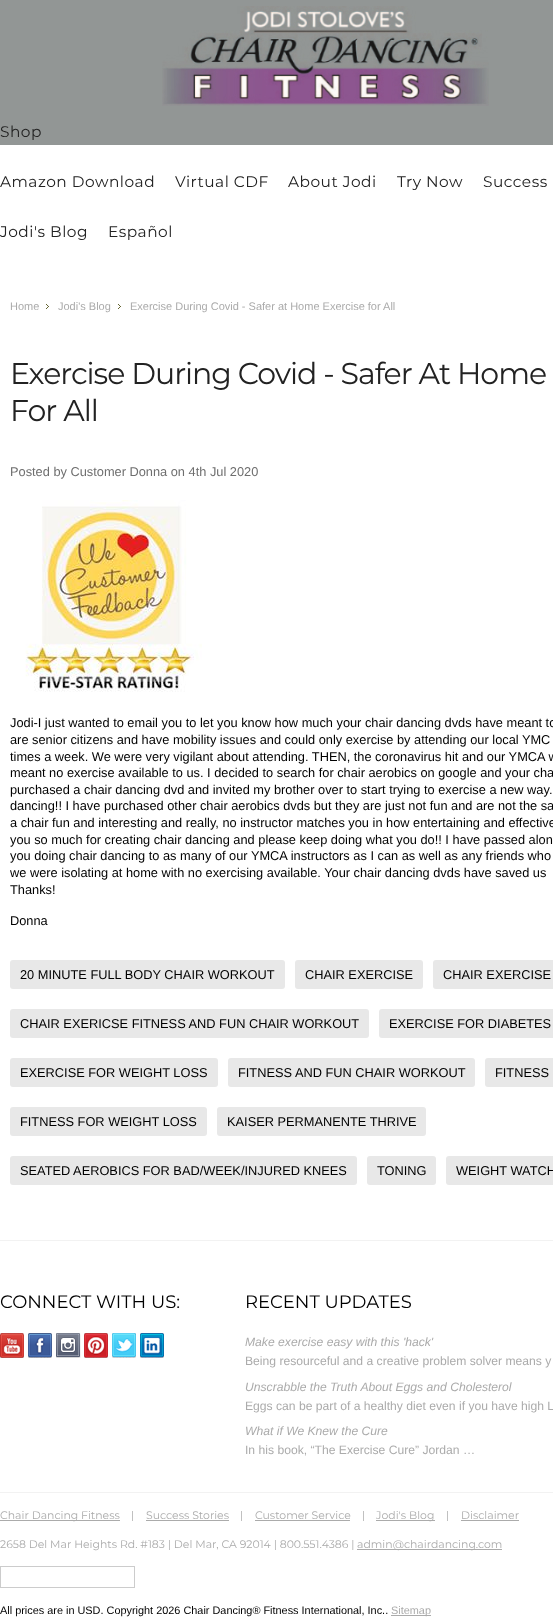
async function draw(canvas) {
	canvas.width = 553;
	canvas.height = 1617;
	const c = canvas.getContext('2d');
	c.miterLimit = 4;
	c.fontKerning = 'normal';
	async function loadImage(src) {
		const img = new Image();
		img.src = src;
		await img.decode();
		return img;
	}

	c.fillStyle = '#fff';
	c.fillRect(0, 0, 553, 1617);
	c.fillStyle = '#929695';
	c.fillRect(0, 0, 553, 145);
	c.drawImage(await loadImage('img1.png'), 162, 6, 327, 100);
	c.letterSpacing = '0.5px';
	c.font = '100 15.4px Montserrat';
	c.fillStyle = '#222';
	for (const [text, x, y] of [
		['Shop', 0, 137],
		['Amazon Download', 0, 187],
		['Virtual CDF', 175, 187],
		['About Jodi', 288, 187],
		['Try Now', 397, 187],
		['Success', 483, 187],
		['Jodi\'s Blog', 0, 237],
		['Español', 108, 237],
	]) {
		c.fillText(text, x, y);
	}
	c.letterSpacing = '0px';
	c.font = '11px Liberation Sans';
	c.fillStyle = '#ababab';
	c.fillText('Home', 10, 310);
	c.drawImage(await loadImage('img2.png'), 46, 304, 3, 5);
	c.fillText('Jodi\'s Blog', 58, 310);
	c.drawImage(await loadImage('img2.png'), 118, 304, 3, 5);
	c.fillText('Exercise During Covid - Safer at Home Exercise for All', 130, 310);
	c.letterSpacing = '-1px';
	c.font = '100 30px Montserrat';
	c.fillStyle = '#222';
	c.fillText('Exercise During Covid - Safer At Home', 10, 384);
	c.fillText('For All', 10, 421);
	c.letterSpacing = '0px';
	c.font = '12.8px Liberation Sans';
	c.fillStyle = '#6e6e6e';
	c.fillText('Posted by Customer Donna on 4th Jul 2020', 10, 476);
	c.drawImage(await loadImage('img3.png'), 25, 500, 177, 192);
	c.fillStyle = '#000';
	for (const [text, x, y] of [
		['Jodi-I just wanted to email you to let you know how much your chair dancing dvds have meant to', 10, 727],
		['are senior citizens and have mobility issues and could only exercise by attending our local YMC', 10, 744],
		['times a week. We were very vigilant about attending. THEN, the coronavirus hit and our YMCA w', 10, 761],
		['meant no exercise available to us. I decided to search for chair aerobics on google and your cha', 10, 777],
		['purchased a chair dancing dvd and invited my brother over to start trying to exercise a new way.', 10, 794],
		['dancing!! I have purchased other chair aerobics dvds but they are just not fun and are not the sa', 10, 810],
		['a chair fun and interesting and really, no instructor matches you in how entertaining and effective', 10, 827],
		['you so much for creating chair dancing and please keep doing what you do!! I have passed alon', 10, 844],
		['you doing chair dancing to as many of our YMCA instructors as I can as well as any friends who', 10, 860],
		['we were isolating at home with no exercising available. Your chair dancing dvds have saved us', 10, 877],
		['Thanks!', 10, 894],
		['Donna', 10, 925],
	]) {
		c.fillText(text, x, y);
	}
	c.fillStyle = '#e8e8e8';
	c.beginPath();
	c.roundRect(10, 960, 275, 29, 3);
	c.fill();
	c.fillStyle = '#000';
	c.fillText('20 MINUTE FULL BODY CHAIR WORKOUT', 20, 979);
	c.fillStyle = '#e8e8e8';
	c.beginPath();
	c.roundRect(295, 960, 128, 29, 3);
	c.fill();
	c.fillStyle = '#000';
	c.fillText('CHAIR EXERCISE', 305, 979);
	c.fillStyle = '#e8e8e8';
	c.beginPath();
	c.roundRect(433, 960, 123, 29, 3);
	c.fill();
	c.fillStyle = '#000';
	c.fillText('CHAIR EXERCISE', 443, 979);
	c.fillStyle = '#e8e8e8';
	c.beginPath();
	c.roundRect(10, 1009, 359, 29, 3);
	c.fill();
	c.fillStyle = '#000';
	c.fillText('CHAIR EXERICSE FITNESS AND FUN CHAIR WORKOUT', 20, 1028);
	c.fillStyle = '#e8e8e8';
	c.beginPath();
	c.roundRect(379, 1009, 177, 29, 3);
	c.fill();
	c.fillStyle = '#000';
	c.fillText('EXERCISE FOR DIABETES', 389, 1028);
	c.fillStyle = '#e8e8e8';
	c.beginPath();
	c.roundRect(10, 1058, 208, 29, 3);
	c.fill();
	c.fillStyle = '#000';
	c.fillText('EXERCISE FOR WEIGHT LOSS', 20, 1077);
	c.fillStyle = '#e8e8e8';
	c.beginPath();
	c.roundRect(228, 1058, 247, 29, 3);
	c.fill();
	c.fillStyle = '#000';
	c.fillText('FITNESS AND FUN CHAIR WORKOUT', 238, 1077);
	c.fillStyle = '#e8e8e8';
	c.beginPath();
	c.roundRect(485, 1058, 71, 29, 3);
	c.fill();
	c.fillStyle = '#000';
	c.fillText('FITNESS', 495, 1077);
	c.fillStyle = '#e8e8e8';
	c.beginPath();
	c.roundRect(10, 1107, 197, 29, 3);
	c.fill();
	c.fillStyle = '#000';
	c.fillText('FITNESS FOR WEIGHT LOSS', 20, 1126);
	c.fillStyle = '#e8e8e8';
	c.beginPath();
	c.roundRect(217, 1107, 209, 29, 3);
	c.fill();
	c.fillStyle = '#000';
	c.fillText('KAISER PERMANENTE THRIVE', 227, 1126);
	c.fillStyle = '#e8e8e8';
	c.beginPath();
	c.roundRect(10, 1156, 347, 29, 3);
	c.fill();
	c.fillStyle = '#000';
	c.fillText('SEATED AEROBICS FOR BAD/WEEK/INJURED KNEES', 20, 1175);
	c.fillStyle = '#e8e8e8';
	c.beginPath();
	c.roundRect(367, 1156, 69, 29, 3);
	c.fill();
	c.fillStyle = '#000';
	c.fillText('TONING', 377, 1175);
	c.fillStyle = '#e8e8e8';
	c.beginPath();
	c.roundRect(446, 1156, 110, 29, 3);
	c.fill();
	c.fillStyle = '#000';
	c.fillText('WEIGHT WATCH', 456, 1175);
	c.fillStyle = '#f2f2f2';
	c.fillRect(0, 1240, 553, 1);
	c.font = '100 18px Montserrat';
	c.fillStyle = '#000';
	c.fillText('CONNECT WITH US:', 0, 1308);
	c.drawImage(await loadImage('img4.png'), 0, 1333, 24, 25);
	c.drawImage(await loadImage('img5.png'), 28, 1333, 24, 25);
	c.drawImage(await loadImage('img6.png'), 56, 1333, 25, 25);
	c.drawImage(await loadImage('img7.png'), 84, 1333, 24, 25);
	c.drawImage(await loadImage('img8.png'), 112, 1333, 24, 25);
	c.drawImage(await loadImage('img9.png'), 140, 1333, 24, 25);
	c.fillText('RECENT UPDATES', 245, 1308);
	c.font = 'italic 12.15px Liberation Sans';
	c.fillStyle = '#ababab';
	c.fillText('Make exercise easy with this \'hack\'', 245, 1346);
	c.font = '12.15px Liberation Sans';
	c.fillText('Being resourceful and a creative problem solver means y', 245, 1365);
	c.font = 'italic 12.15px Liberation Sans';
	c.fillText('Unscrabble the Truth About Eggs and Cholesterol', 245, 1391);
	c.font = '12.15px Liberation Sans';
	c.fillText('Eggs can be part of a healthy diet even if you have high L', 245, 1410);
	c.font = 'italic 12.15px Liberation Sans';
	c.fillText('What if We Knew the Cure', 245, 1435);
	c.font = '12.15px Liberation Sans';
	c.fillText('In his book, “The Exercise Cure” Jordan …', 245, 1454);
	c.fillStyle = '#f2f2f2';
	c.fillRect(0, 1492, 553, 1);
	c.fillStyle = '#ababab';
	c.fillRect(0, 1520, 120, 1);
	c.font = '100 10.9px Montserrat';
	for (const [text, x, y] of [
		['Chair Dancing Fitness', 0, 1519],
		['|', 131, 1519],
		['Success Stories', 146, 1519],
	]) {
		c.fillText(text, x, y);
	}
	c.fillRect(146, 1520, 83, 1);
	c.fillText('|', 240, 1519);
	c.fillText('Customer Service', 255, 1519);
	c.fillRect(255, 1520, 95, 1);
	c.fillText('|', 362, 1519);
	c.fillRect(376, 1520, 59, 1);
	for (const [text, x, y] of [
		['Jodi\'s Blog', 376, 1519],
		['|', 446, 1519],
		['Disclaimer', 461, 1519],
	]) {
		c.fillText(text, x, y);
	}
	c.fillRect(461, 1520, 58, 1);
	c.fillText('2658 Del Mar Heights Rd. #183 | Del Mar, CA 92014 | 800.551.4386 |', 0, 1548);
	c.fillRect(357, 1549, 145, 1);
	c.fillText('admin@chairdancing.com', 357, 1548);
	for (const [x, y, w, h, color] of [
		[0, 1566, 135, 1, '#ccc'],
		[134, 1566, 1, 22, '#ccc'],
		[0, 1587, 135, 1, '#ccc'],
		[0, 1566, 1, 22, '#ccc'],
	]) {
		c.fillStyle = color;
		c.fillRect(x, y, w, h);
	}
	c.font = '10.9px Liberation Sans';
	c.fillStyle = '#000';
	c.fillText('All prices are in USD. Copyright 2026 Chair Dancing® Fitness International, Inc..', 0, 1614);
	c.fillStyle = '#ababab';
	c.fillRect(391, 1615, 40, 1);
	c.fillText('Sitemap', 391, 1614);
}

draw(document.querySelector('canvas'));
